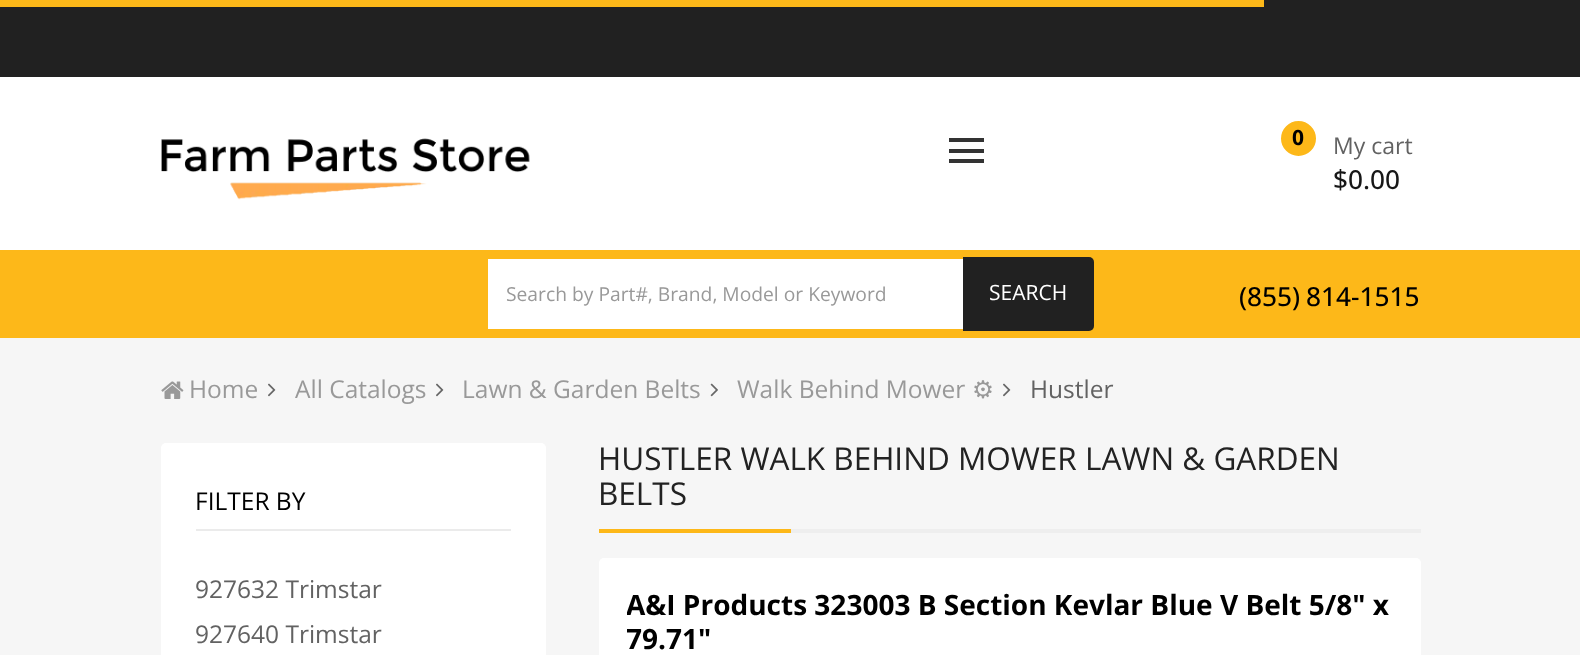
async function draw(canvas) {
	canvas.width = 1580;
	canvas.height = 655;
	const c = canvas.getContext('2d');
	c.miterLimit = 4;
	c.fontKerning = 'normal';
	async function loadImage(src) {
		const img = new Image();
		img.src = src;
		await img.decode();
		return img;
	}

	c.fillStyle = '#f6f6f6';
	c.fillRect(0, 0, 1580, 655);
	for (const [x, y, w, h, color] of [
		[0, 0, 1580, 77, '#212121'],
		[0, 0, 1264, 7, '#fdb819'],
		[0, 77, 1580, 173, '#fff'],
	]) {
		c.fillStyle = color;
		c.fillRect(x, y, w, h);
	}
	c.drawImage(await loadImage('img1.png'), 161, 138, 369, 62);
	for (const [x, y, w, h, color] of [
		[949, 138, 35, 4, '#333'],
		[949, 149, 35, 4, '#333'],
		[949, 159, 35, 4, '#333'],
	]) {
		c.fillStyle = color;
		c.fillRect(x, y, w, h);
	}
	c.fillStyle = '#fdb819';
	c.beginPath();
	c.arc(1298.5, 138.5, 18.5, 0, 2 * Math.PI);
	c.fill();
	c.strokeStyle = '#fff';
	c.lineWidth = 2;
	c.stroke();
	c.font = 'bold 21px Open Sans';
	c.fillStyle = '#000';
	c.fillText('0', 1292, 145);
	c.font = '500 26.25px Open Sans';
	c.fillStyle = '#171717';
	c.fillText('$0.00', 1333, 189);
	c.font = '23px Open Sans';
	c.fillStyle = '#626262';
	c.fillText('My cart', 1333, 154);
	c.fillStyle = '#fdb819';
	c.fillRect(0, 250, 1580, 88);
	c.fillStyle = '#fff';
	c.fillRect(488, 259, 475, 70);
	c.font = '19.25px Open Sans';
	c.fillStyle = '#999';
	c.fillText('Search by Part#, Brand, Model or Keyword', 506, 301);
	c.fillStyle = '#212121';
	c.beginPath();
	c.roundRect(963, 257, 131, 74, [0, 5, 5, 0]);
	c.fill();
	c.font = '21px Open Sans';
	c.fillStyle = '#fff';
	c.fillText('SEARCH', 989, 300);
	c.wordSpacing = '-1px';
	c.font = '500 26.25px Open Sans';
	c.fillStyle = '#000';
	c.fillText('(855) 814-1515', 1239, 306);
	c.drawImage(await loadImage('img2.png'), 161, 381, 23, 18);
	c.wordSpacing = '0px';
	c.font = '24.5px Open Sans';
	c.fillStyle = '#999';
	c.fillText('Home', 189, 398);
	c.drawImage(await loadImage('img3.png'), 268, 383, 8, 14);
	c.fillText('All Catalogs', 295, 398);
	c.drawImage(await loadImage('img3.png'), 436, 383, 8, 14);
	c.fillText('Lawn & Garden Belts', 462, 398);
	c.drawImage(await loadImage('img4.png'), 710, 383, 8, 14);
	c.fillText('Walk Behind Mower', 737, 398);
	c.font = '24.5px DejaVu Sans';
	c.fillText('⚙', 972, 398);
	c.drawImage(await loadImage('img3.png'), 1003, 383, 8, 14);
	c.font = '24.5px Open Sans';
	c.fillStyle = '#626262';
	c.fillText('Hustler', 1030, 398);
	c.fillStyle = '#fff';
	c.beginPath();
	c.roundRect(161, 443, 385, 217, 5);
	c.fill();
	c.fillStyle = '#ebebeb';
	c.fillRect(196, 529, 315, 2);
	c.fillStyle = '#000';
	c.fillText('FILTER BY', 195, 510);
	c.fillStyle = '#626262';
	c.fillText('927632 Trimstar', 195, 598);
	c.fillText('927640 Trimstar', 195, 643);
	c.fillStyle = '#eee';
	c.fillRect(791, 529, 630, 4);
	c.font = '31.5px Open Sans';
	c.fillStyle = '#222';
	c.fillText('HUSTLER WALK BEHIND MOWER LAWN & GARDEN', 598, 470);
	c.fillText('BELTS', 598, 505);
	c.fillStyle = '#fdb819';
	c.fillRect(599, 529, 192, 4);
	c.fillStyle = '#fff';
	c.beginPath();
	c.roundRect(599, 558, 822, 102, 5);
	c.fill();
	c.save();
	c.beginPath();
	c.rect(627, 586, 766, 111);
	c.clip();
	c.font = 'bold 28px Open Sans';
	c.fillStyle = '#000';
	c.fillText('A&I Products 323003 B Section Kevlar Blue V Belt 5/8" x', 626, 615);
	c.fillText('79.71"', 626, 649);
	c.restore();
}

draw(document.querySelector('canvas'));
